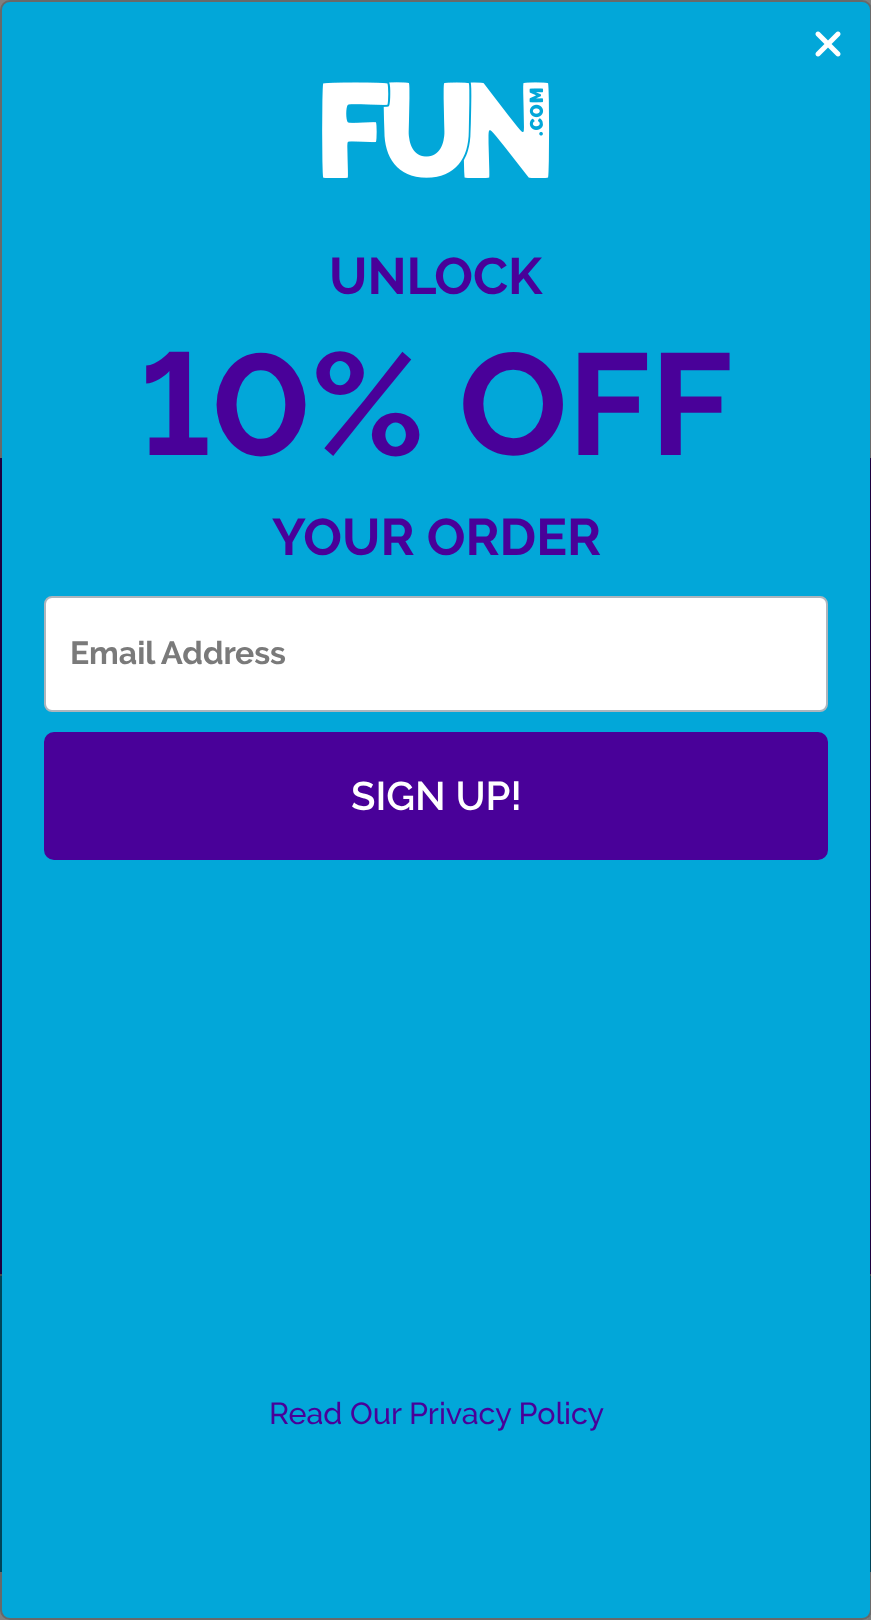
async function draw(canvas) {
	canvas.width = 871;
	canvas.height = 1620;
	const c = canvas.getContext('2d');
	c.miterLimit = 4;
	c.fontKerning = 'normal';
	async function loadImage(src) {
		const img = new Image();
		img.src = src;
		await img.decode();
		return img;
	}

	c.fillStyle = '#808080';
	c.fillRect(0, 0, 871, 1620);
	for (const [x, y, w, h, color] of [
		[0, 458, 871, 816, '#25014d'],
		[0, 1276, 871, 296, '#01546d'],
		[0, 1274, 871, 2, '#575b5f'],
		[868, 1616, 3, 4, '#7b7b7b'],
	]) {
		c.fillStyle = color;
		c.fillRect(x, y, w, h);
	}
	c.fillStyle = '#02a7d9';
	c.beginPath();
	c.roundRect(2, 2, 868, 1616, 8);
	c.fill();
	c.beginPath();
	c.roundRect(1, 1, 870, 1618, 9);
	c.strokeStyle = '#0000002e';
	c.lineWidth = 2;
	c.stroke();
	c.drawImage(await loadImage('img1.png'), 815, 31, 26, 26);
	c.drawImage(await loadImage('img2.png'), 322, 82, 228, 96);
	c.font = 'bold 51.25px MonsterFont';
	c.fillStyle = '#490199';
	c.fillText('UNLOCK', 329, 294);
	c.font = 'bold 144px MonsterFont';
	c.fillText('10% OFF', 140, 455);
	c.font = 'bold 51.25px MonsterFont';
	c.fillText('YOUR ORDER', 272, 555);
	c.fillStyle = '#fff';
	c.beginPath();
	c.roundRect(45, 597, 782, 114, 7);
	c.fill();
	c.strokeStyle = '#adb5bd';
	c.stroke();
	c.font = 'bold 32px MonsterFont';
	c.fillStyle = '#7a7a7a';
	c.fillText('Email Address', 70, 664);
	c.fillStyle = '#490199';
	c.beginPath();
	c.roundRect(45, 733, 782, 126, 9);
	c.fill();
	c.strokeStyle = '#490199';
	c.stroke();
	c.font = '600 40px MonsterFont';
	c.fillStyle = '#fff';
	c.fillText('SIGN UP!', 351, 810);
	c.font = '500 30.4px MonsterFont';
	c.fillStyle = '#490199';
	c.fillText('Read Our Privacy Policy', 269, 1424);
}

draw(document.querySelector('canvas'));
